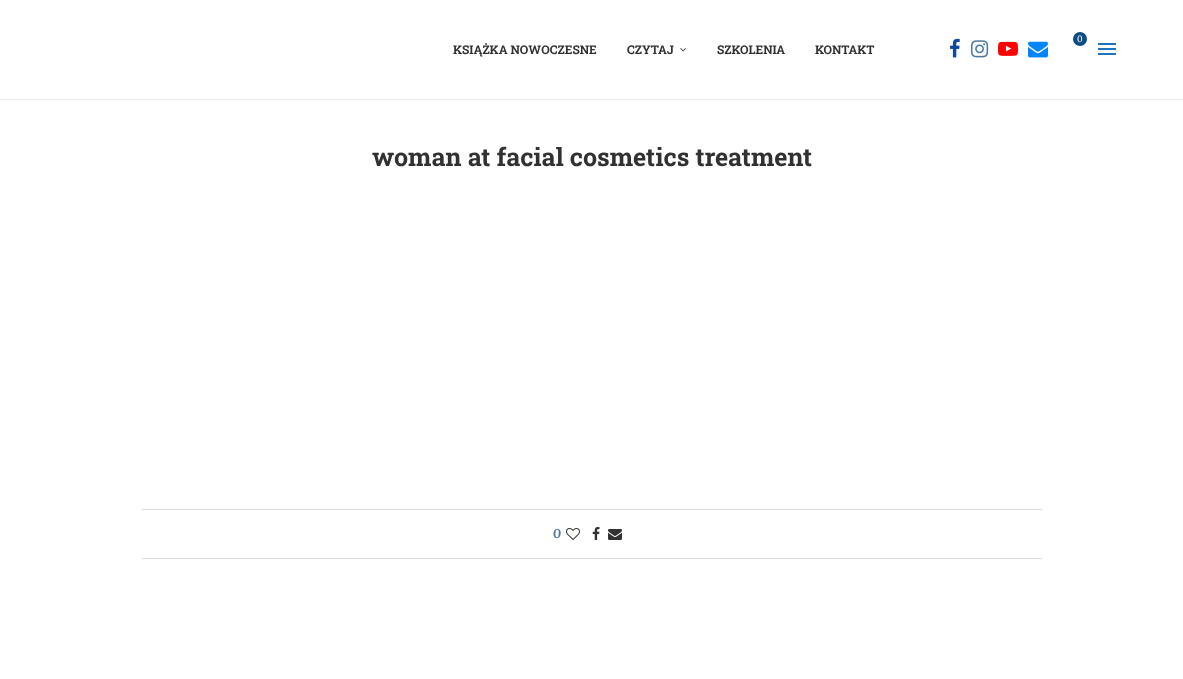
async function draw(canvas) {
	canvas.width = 1183;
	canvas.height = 679;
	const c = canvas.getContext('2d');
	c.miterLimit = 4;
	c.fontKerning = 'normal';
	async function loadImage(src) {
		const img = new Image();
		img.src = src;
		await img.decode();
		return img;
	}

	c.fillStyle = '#fff';
	c.fillRect(0, 0, 1183, 679);
	c.fillStyle = '#ececec';
	c.fillRect(0, 99, 1183, 1);
	c.font = 'bold 12px Roboto Slab';
	c.fillStyle = '#313131';
	c.fillText('KSIĄŻKA NOWOCZESNE', 453, 54);
	c.fillText('CZYTAJ', 627, 54);
	c.drawImage(await loadImage('img1.png'), 680, 48, 6, 4);
	c.fillText('SZKOLENIA', 717, 54);
	c.fillText('KONTAKT', 815, 54);
	c.drawImage(await loadImage('img2.png'), 950, 38, 10, 20);
	c.drawImage(await loadImage('img3.png'), 971, 40, 18, 18);
	c.drawImage(await loadImage('img4.png'), 998, 41, 20, 15);
	c.drawImage(await loadImage('img5.png'), 1028, 41, 20, 17);
	c.fillStyle = '#0f4c81';
	c.beginPath();
	c.arc(1080, 39, 7, 0, 2 * Math.PI);
	c.fill();
	c.font = '9px Lora';
	c.fillStyle = '#fff';
	c.fillText('0', 1077, 42);
	for (const [x, y, w, h, color] of [
		[1098, 43, 18, 2, '#1e73be'],
		[1098, 53, 18, 2, '#1e73be'],
		[1098, 48, 18, 2, '#1e73be'],
	]) {
		c.fillStyle = color;
		c.fillRect(x, y, w, h);
	}
	c.font = 'bold 25px Roboto Slab';
	c.fillStyle = '#313131';
	c.fillText('woman at facial cosmetics treatment', 372, 166);
	c.fillStyle = '#dedede';
	c.fillRect(142, 509, 900, 1);
	c.font = 'italic bold 13px Lora';
	c.fillStyle = '#4c7aa1';
	c.fillText('0', 553, 538);
	c.drawImage(await loadImage('img6.png'), 566, 528, 14, 12);
	c.drawImage(await loadImage('img7.png'), 592, 527, 8, 13);
	c.drawImage(await loadImage('img8.png'), 608, 529, 14, 11);
	c.fillStyle = '#dedede';
	c.fillRect(142, 558, 900, 1);
}

draw(document.querySelector('canvas'));
